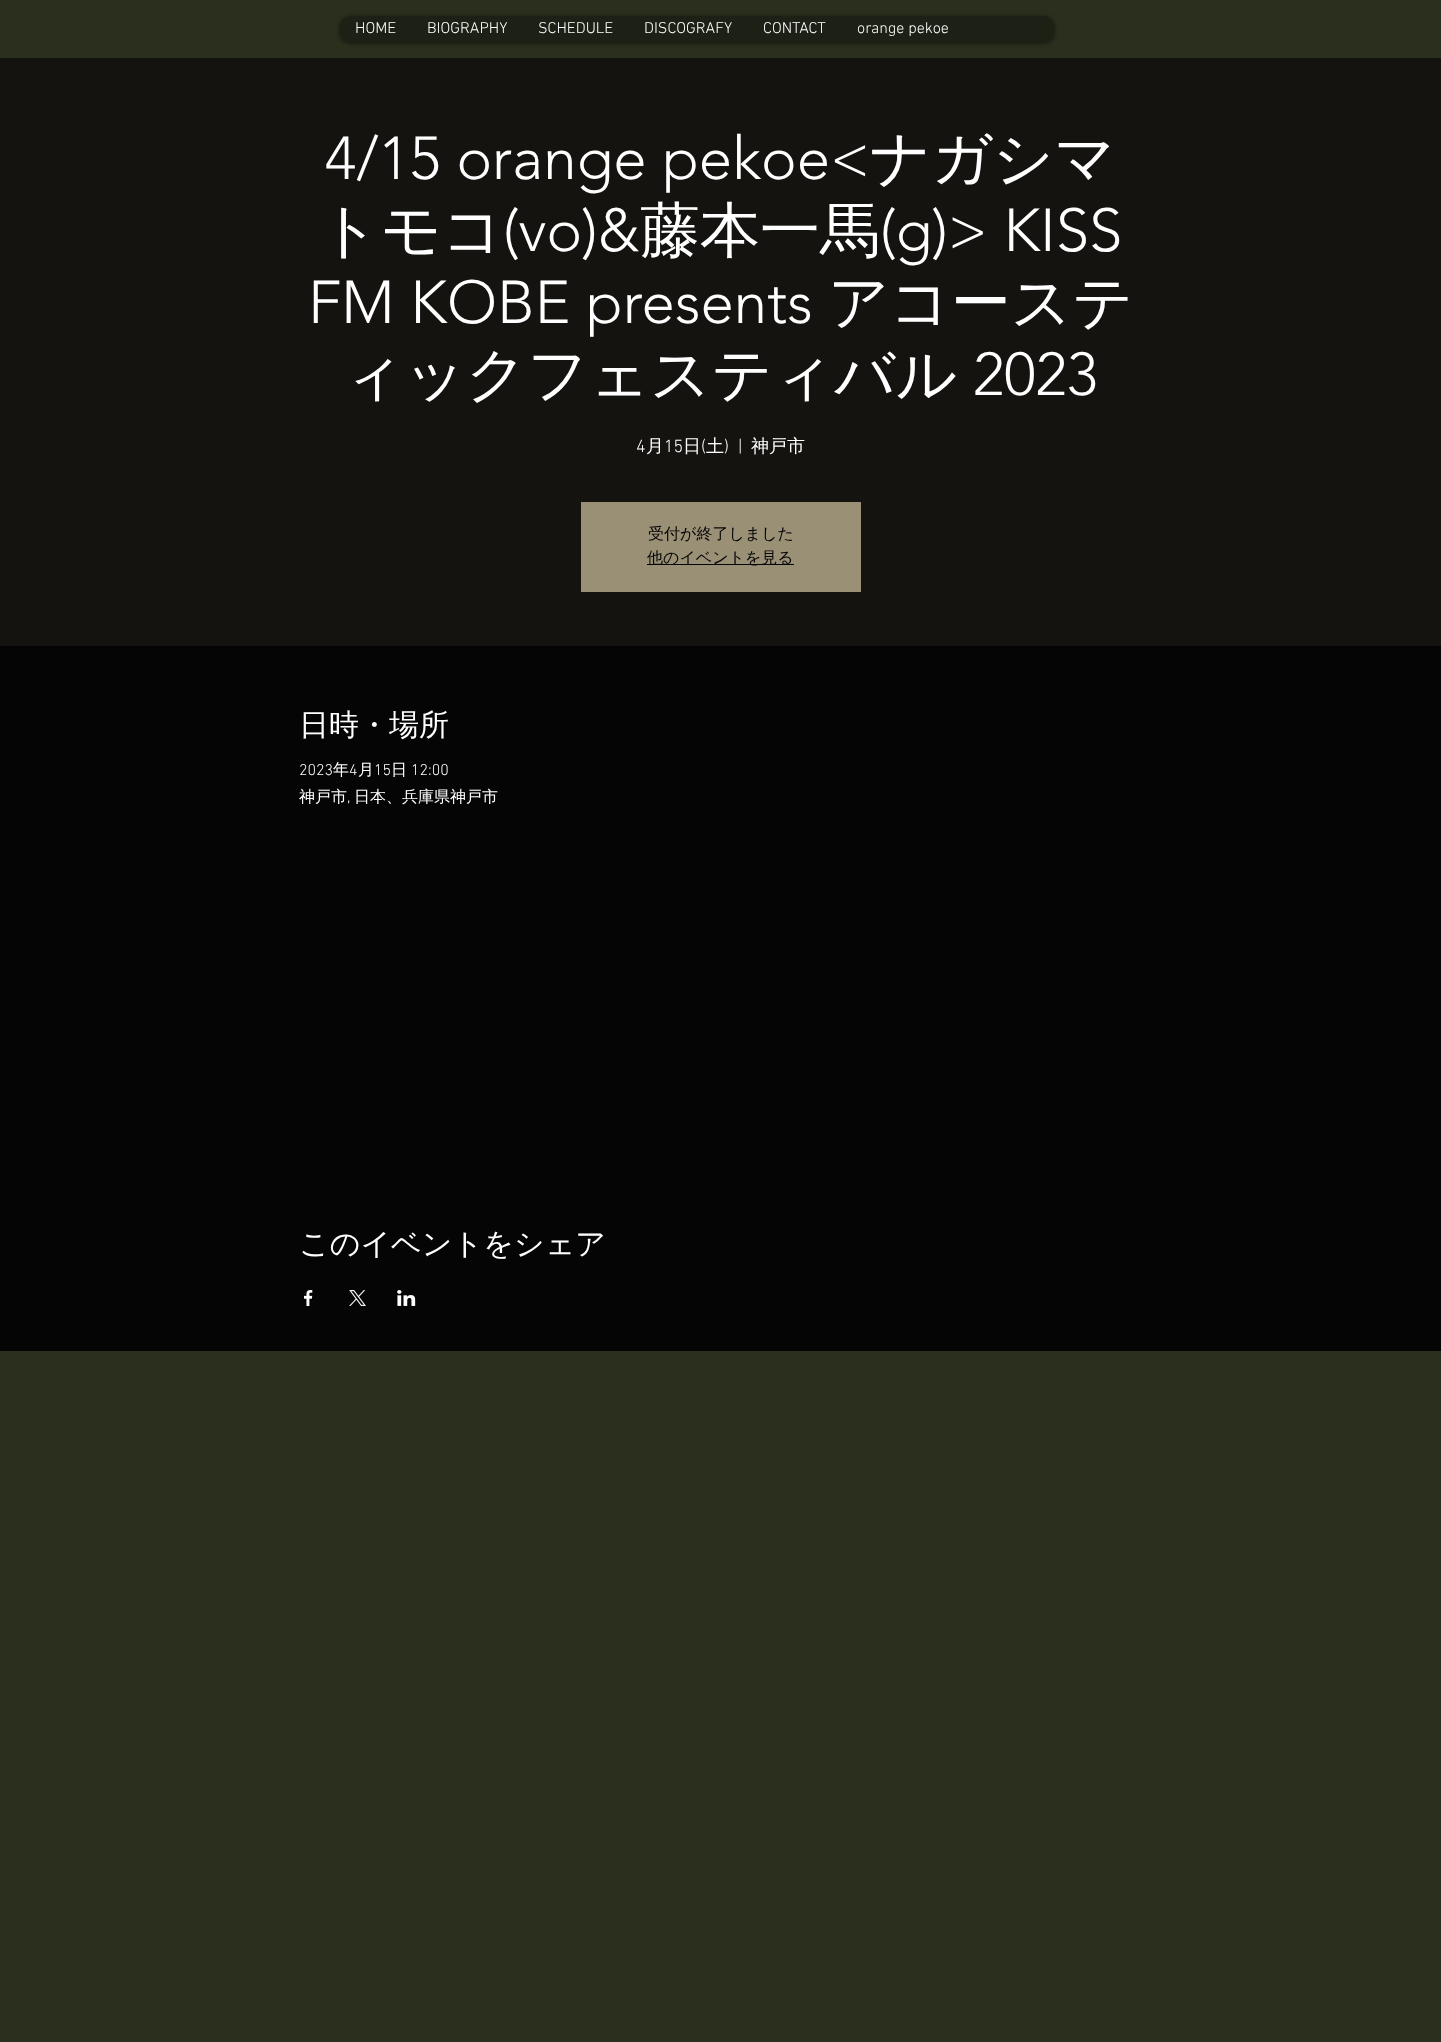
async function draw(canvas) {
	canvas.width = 1441;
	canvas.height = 2042;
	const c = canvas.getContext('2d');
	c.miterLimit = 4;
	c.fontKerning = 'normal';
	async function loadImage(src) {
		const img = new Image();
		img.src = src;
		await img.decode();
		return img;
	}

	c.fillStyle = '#2b2f1d';
	c.fillRect(0, 0, 1441, 2042);
	c.save();
	c.beginPath();
	c.moveTo(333, 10);
	c.lineTo(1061, 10);
	c.lineTo(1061, 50);
	c.lineTo(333, 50);
	c.closePath();
	c.moveTo(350, 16);
	c.lineTo(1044, 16);
	c.bezierCurveTo(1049.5, 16, 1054, 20.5, 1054, 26);
	c.lineTo(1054, 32);
	c.bezierCurveTo(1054, 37.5, 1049.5, 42, 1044, 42);
	c.lineTo(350, 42);
	c.bezierCurveTo(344.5, 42, 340, 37.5, 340, 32);
	c.lineTo(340, 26);
	c.bezierCurveTo(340, 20.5, 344.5, 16, 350, 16);
	c.closePath();
	c.clip('evenodd');
	c.fillStyle = '#00000099';
	c.filter = 'blur(2px)';
	c.beginPath();
	c.roundRect(340, 17, 714, 26, 10);
	c.fill();
	c.filter = 'none';
	c.restore();
	c.fillStyle = '#0505055c';
	c.beginPath();
	c.roundRect(340, 16, 714, 26, 10);
	c.fill();
	c.font = '300 16px "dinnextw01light"';
	c.fillStyle = '#fff';
	for (const [text, x, y] of [
		['HOME', 355, 33],
		['BIOGRAPHY', 427, 33],
		['SCHEDULE', 538, 33],
		['DISCOGRAFY', 644, 33],
		['CONTACT', 763, 33],
		['orange pekoe', 857, 33],
	]) {
		c.fillText(text, x, y);
	}
	c.fillStyle = '#141310';
	c.fillRect(0, 58, 1441, 588);
	c.font = '300 60px "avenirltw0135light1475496"';
	c.fillStyle = '#fff';
	c.fillText('4/15 orange pekoe<', 325, 179);
	c.font = '500 60px WenQuanYi Zen Hei';
	c.fillText('ナガシマ', 870, 179);
	c.fillText('トモコ', 319, 251);
	c.font = '300 60px "avenirltw0135light1475496"';
	c.fillText('(vo)&', 503, 251);
	c.font = '500 60px WenQuanYi Zen Hei';
	c.fillText('藤本一馬', 640, 251);
	c.font = '300 60px "avenirltw0135light1475496"';
	c.fillText('(g)> KISS', 880, 251);
	c.fillText('FM KOBE presents', 308, 323);
	c.font = '500 60px WenQuanYi Zen Hei';
	c.fillText('アコーステ', 828, 323);
	c.fillText('ィックフェスティバル', 343, 395);
	c.font = '300 60px "avenirltw0135light1475496"';
	c.fillText('2023', 973, 395);
	c.font = '300 18px "dinnextw01light"';
	c.fillText('4', 636, 452);
	c.font = '500 18px WenQuanYi Zen Hei';
	c.fillText('月', 646, 452);
	c.font = '300 18px "dinnextw01light"';
	c.fillText('15', 664, 452);
	c.font = '500 18px WenQuanYi Zen Hei';
	c.fillText('日', 683, 452);
	c.font = '300 18px "dinnextw01light"';
	c.fillText('(', 701, 452);
	c.font = '500 18px WenQuanYi Zen Hei';
	c.fillText('土', 706, 452);
	c.font = '300 18px "dinnextw01light"';
	c.fillText(')', 724, 452);
	c.fillText('|', 738, 452);
	c.font = '500 18px WenQuanYi Zen Hei';
	c.fillText('神戸市', 751, 452);
	c.fillStyle = '#999076';
	c.fillRect(581, 502, 280, 90);
	c.font = '500 16px WenQuanYi Zen Hei';
	c.fillStyle = '#050505';
	c.fillText('受付が終了しました', 648, 539);
	c.fillRect(647, 564, 147, 1);
	c.fillText('他のイベントを見る', 647, 563);
	c.fillRect(0, 646, 1441, 705);
	c.font = '500 30px WenQuanYi Zen Hei';
	c.fillStyle = '#fff';
	c.fillText('日時・場所', 299, 735);
	c.font = '300 16px "dinnextw01light"';
	c.fillText('2023', 299, 775);
	c.font = '500 16px WenQuanYi Zen Hei';
	c.fillText('年', 333, 775);
	c.font = '300 16px "dinnextw01light"';
	c.fillText('4', 349, 775);
	c.font = '500 16px WenQuanYi Zen Hei';
	c.fillText('月', 358, 775);
	c.font = '300 16px "dinnextw01light"';
	c.fillText('15', 374, 775);
	c.font = '500 16px WenQuanYi Zen Hei';
	c.fillText('日', 391, 775);
	c.font = '300 16px "dinnextw01light"';
	c.fillText('12:00', 411, 775);
	c.font = '500 16px WenQuanYi Zen Hei';
	c.fillText('神戸市', 299, 802);
	c.font = '300 16px "dinnextw01light"';
	c.fillText(',', 347, 802);
	c.font = '500 16px WenQuanYi Zen Hei';
	c.fillText('日本、兵庫県神戸市', 354, 802);
	c.font = '500 30px WenQuanYi Zen Hei';
	c.fillText('このイベントをシェア', 299, 1254);
	c.drawImage(await loadImage('img1.png'), 304, 1290, 9, 16);
	c.drawImage(await loadImage('img2.png'), 349, 1290, 17, 16);
	c.drawImage(await loadImage('img3.png'), 397, 1290, 19, 16);
}

draw(document.querySelector('canvas'));
